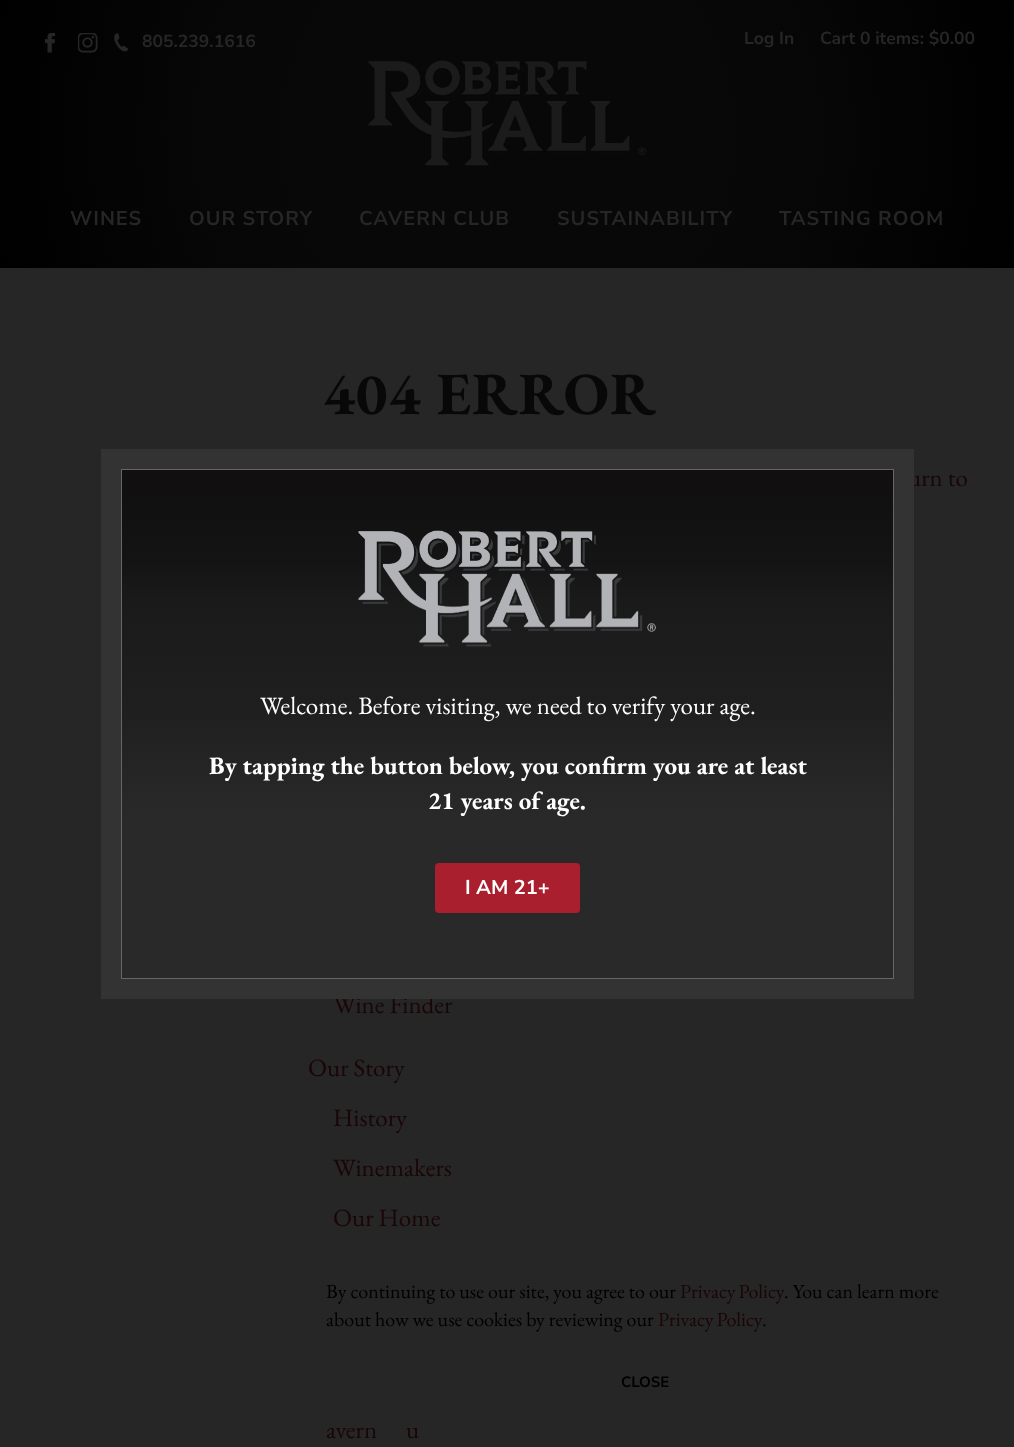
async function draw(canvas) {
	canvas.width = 1014;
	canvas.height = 1447;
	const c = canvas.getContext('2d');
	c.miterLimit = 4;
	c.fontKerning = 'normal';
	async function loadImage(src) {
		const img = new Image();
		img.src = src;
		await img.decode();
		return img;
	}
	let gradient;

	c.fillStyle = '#262626';
	c.fillRect(0, 0, 1014, 1447);
	gradient = c.createRadialGradient(508, 134, 0, 508, 134, 525);
	gradient.addColorStop(0, '#090809');
	gradient.addColorStop(0.4, '#090809');
	gradient.addColorStop(0.62, '#060606');
	gradient.addColorStop(1, '#000');
	c.fillStyle = gradient;
	c.fillRect(0, 0, 1014, 268);
	c.drawImage(await loadImage('img1.png'), 44, 33, 12, 20);
	c.drawImage(await loadImage('img2.png'), 78, 33, 20, 20);
	c.drawImage(await loadImage('img3.png'), 114, 33, 14, 19);
	c.font = 'bold 17.5px Nunito Sans';
	c.fillStyle = '#262626';
	for (const [text, x, y] of [
		['805.239.1616', 142, 47],
		['Log In', 744, 44],
		['Cart 0 items: $0.00', 820, 44],
	]) {
		c.fillText(text, x, y);
	}
	c.drawImage(await loadImage('img4.png'), 368, 60, 278, 106);
	c.letterSpacing = '1px';
	c.font = 'bold 20px Nunito Sans';
	for (const [text, x, y] of [
		['WINES', 70, 225],
		['OUR STORY', 189, 225],
		['CAVERN CLUB', 359, 225],
		['SUSTAINABILITY', 557, 225],
		['TASTING ROOM', 779, 225],
	]) {
		c.fillText(text, x, y);
	}
	c.font = 'bold 60px EB Garamond';
	c.fillStyle = '#080808';
	c.fillText('404 ERROR', 323, 414);
	c.letterSpacing = '0px';
	c.font = '25px EB Garamond';
	c.fillStyle = '#1a0507';
	for (const [text, x, y] of [
		['urn to', 908, 486],
		['Wine Finder', 333, 1013],
		['Our Story', 308, 1076],
		['History', 333, 1126],
		['Winemakers', 333, 1176],
		['Our Home', 333, 1226],
		['avern', 326, 1438],
		['u', 406, 1438],
	]) {
		c.fillText(text, x, y);
	}
	c.fillStyle = '#333';
	c.fillRect(101, 449, 813, 550);
	gradient = c.createLinearGradient(508, 978, 508, 470);
	gradient.addColorStop(0.32, '#292929');
	gradient.addColorStop(0.53, '#1f1f1f');
	gradient.addColorStop(0.74, '#1a1a1a');
	gradient.addColorStop(0.82, '#141414');
	gradient.addColorStop(0.98, '#110f0f');
	c.fillStyle = gradient;
	c.fillRect(122, 470, 771, 508);
	c.strokeStyle = '#666';
	c.strokeRect(121.5, 469.5, 772, 509);
	c.drawImage(await loadImage('img5.png'), 358, 530, 298, 117);
	c.fillStyle = '#fff';
	c.fillText('Welcome. Before visiting, we need to verify your age.', 260, 714);
	c.font = 'bold 25px EB Garamond';
	c.fillText('By tapping the button below, you confirm you are at least', 209, 774);
	c.fillText('21 years of age.', 428, 809);
	c.fillStyle = '#aa1f2e';
	c.beginPath();
	c.roundRect(435, 863, 145, 50, 4);
	c.fill();
	c.font = 'bold 20px Nunito Sans';
	c.fillStyle = '#fff';
	c.fillText('I AM 21+', 465, 894);
	c.fillStyle = '#262626';
	c.beginPath();
	c.roundRect(295, 1256, 700, 172, 4);
	c.fill();
	c.font = '20px EB Garamond';
	c.fillStyle = '#000';
	c.fillText('By continuing to use our site, you agree to our', 326, 1298);
	c.wordSpacing = '-1px';
	c.fillStyle = '#1a0507';
	c.fillText('Privacy Policy', 680, 1298);
	c.wordSpacing = '0px';
	c.fillStyle = '#000';
	c.fillText('. You can learn more', 784, 1298);
	c.fillText('about how we use cookies by reviewing our', 326, 1326);
	c.wordSpacing = '-1px';
	c.fillStyle = '#1a0507';
	c.fillText('Privacy Policy', 658, 1326);
	c.wordSpacing = '0px';
	c.fillStyle = '#000';
	c.fillText('.', 762, 1326);
	c.font = 'bold 15px Nunito Sans';
	c.fillText('CLOSE', 621, 1387);
}

draw(document.querySelector('canvas'));
